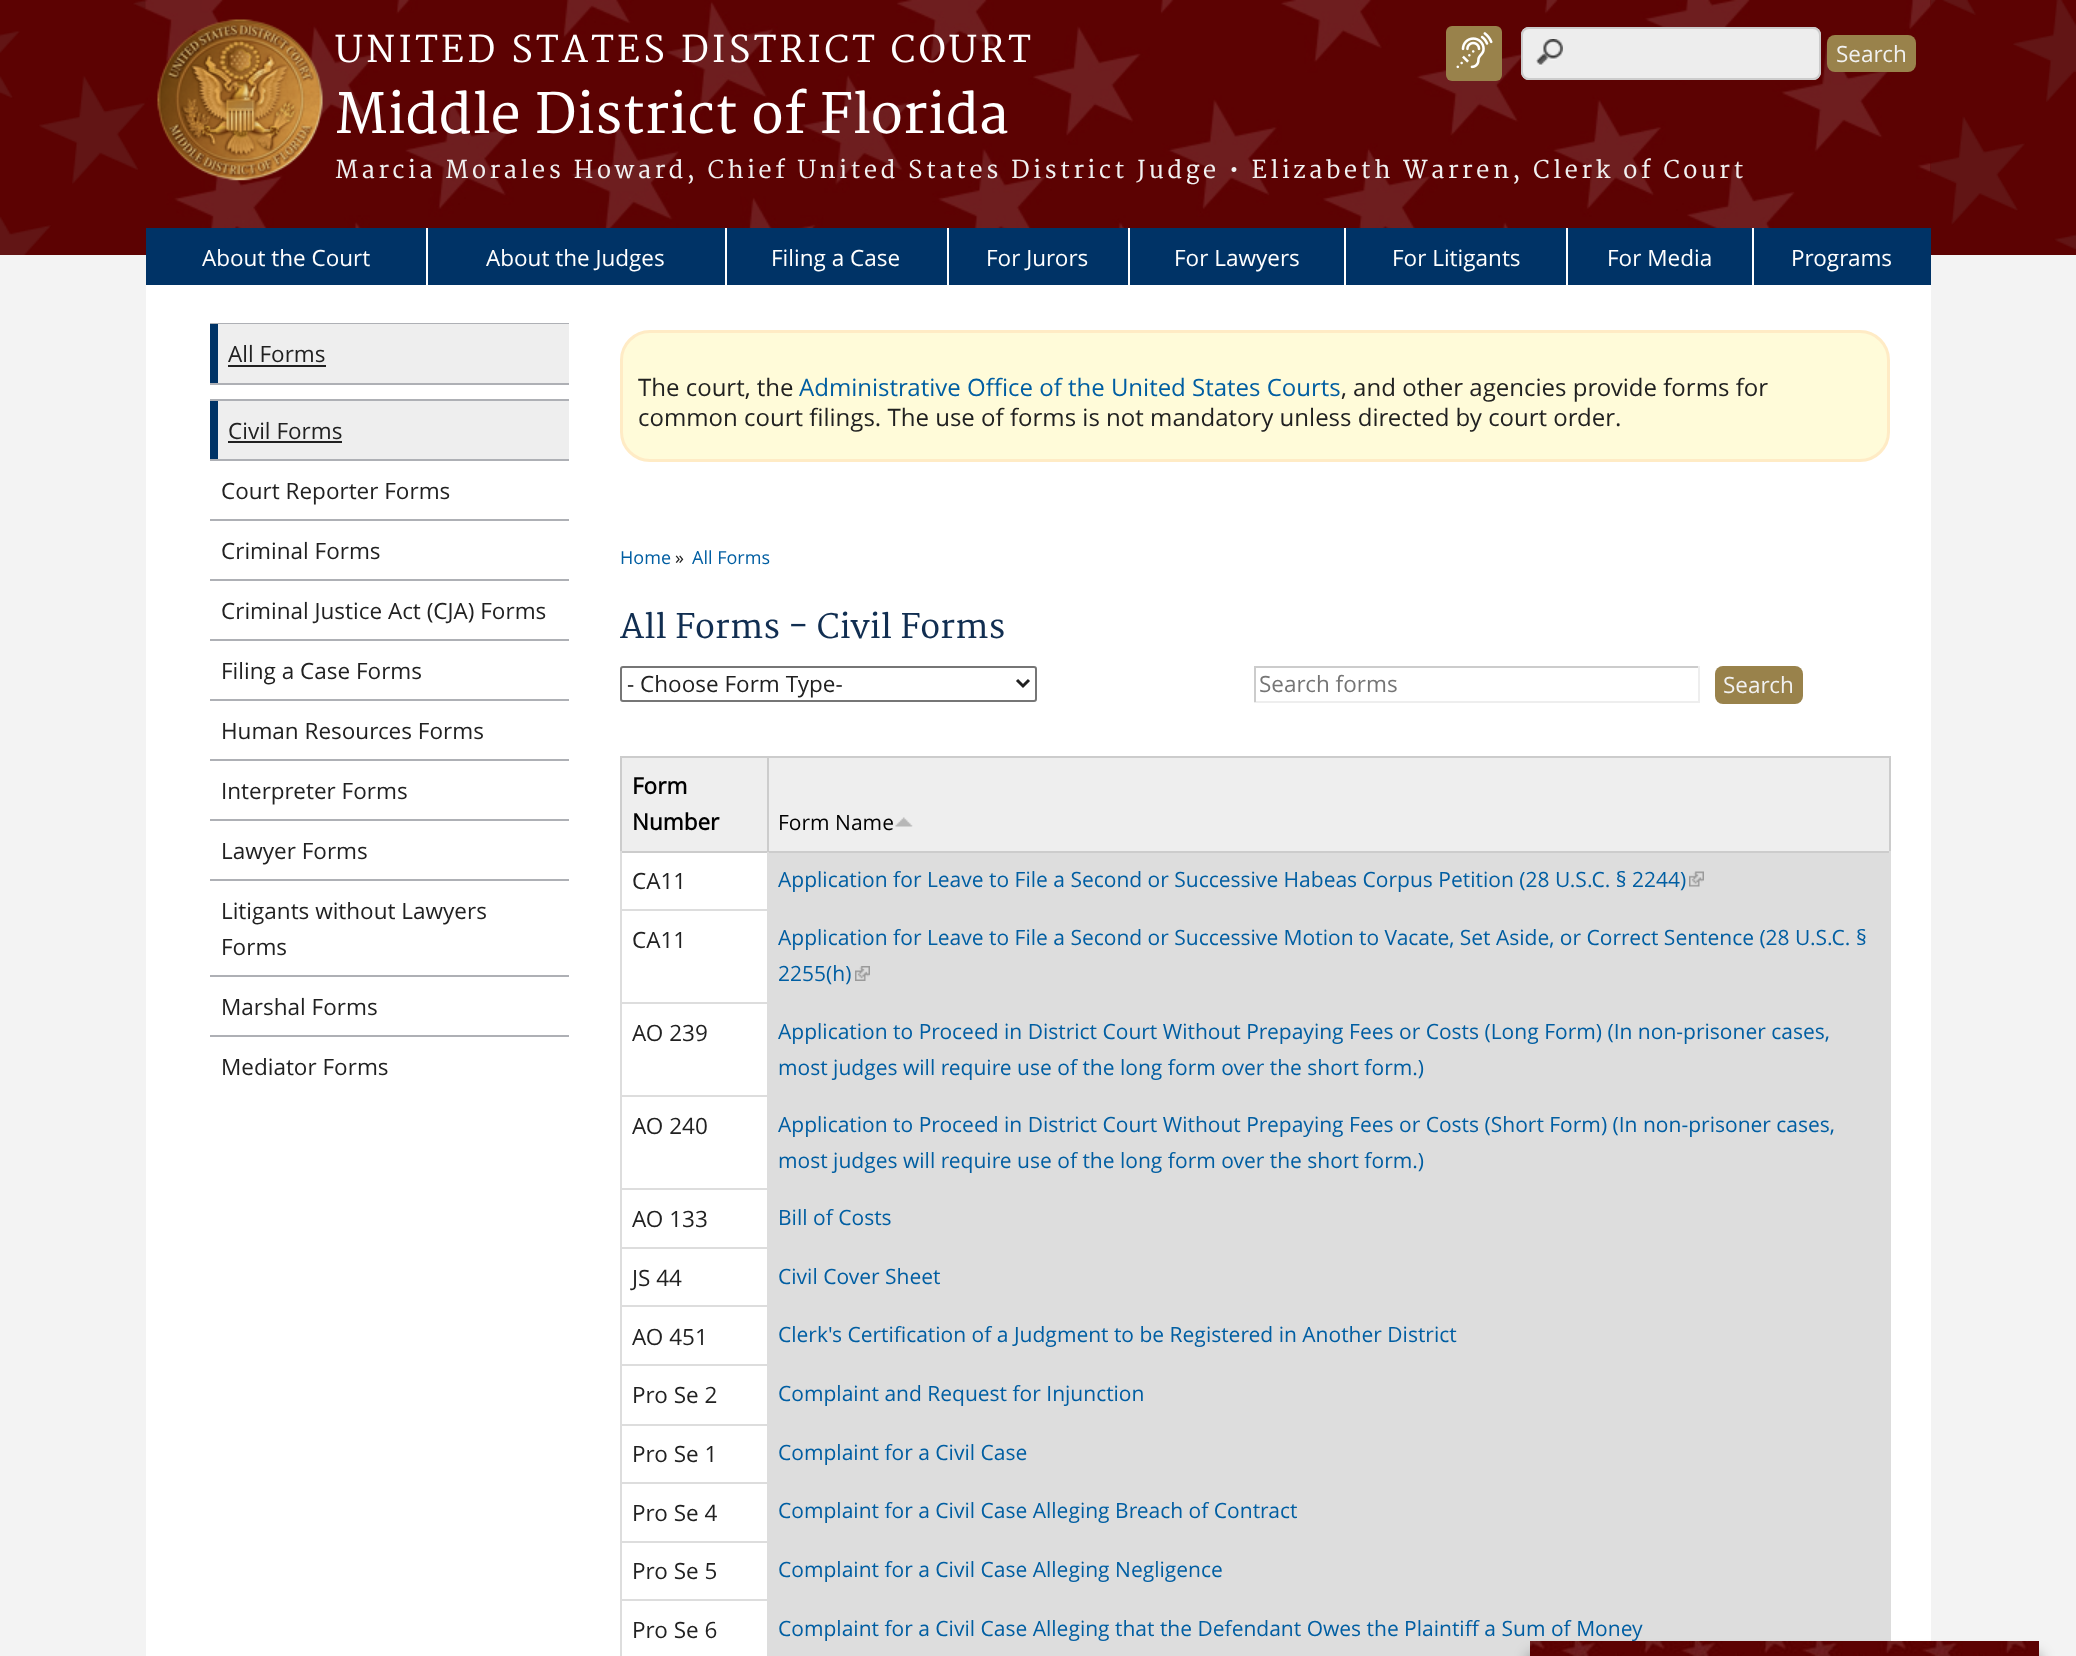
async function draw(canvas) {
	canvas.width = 2076;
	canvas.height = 1656;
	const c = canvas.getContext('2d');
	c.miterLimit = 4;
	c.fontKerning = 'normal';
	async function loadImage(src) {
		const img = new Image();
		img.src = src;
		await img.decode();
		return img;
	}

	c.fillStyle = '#f3f3f3';
	c.fillRect(0, 0, 2076, 1656);
	c.fillStyle = '#5c0202';
	c.fillRect(0, 0, 2076, 255);
	c.drawImage(await loadImage('img1.png'), 0, 0, 2076, 255);
	c.fillStyle = '#fff';
	c.fillRect(146, 285, 1785, 1371);
	c.fillStyle = '#5d0203';
	c.fillRect(1930, 0, 1, 173);
	c.drawImage(await loadImage('img2.png'), 145, 0, 1786, 255);
	c.drawImage(await loadImage('img3.png'), 157, 19, 166, 162);
	c.letterSpacing = '3.3px';
	c.font = '36px Merriweather';
	c.fillStyle = '#fff';
	c.fillText('UNITED STATES DISTRICT COURT', 335, 62);
	c.letterSpacing = '0px';
	c.font = '54px Merriweather';
	c.fillText('Middle District of Florida', 335, 133);
	c.letterSpacing = '3.3px';
	c.font = '24px Merriweather';
	c.fillStyle = '#f1f1f1';
	c.fillText('Marcia Morales Howard, Chief United States District Judge • Elizabeth Warren, Clerk of Court', 335, 178);
	c.fillStyle = '#99824b';
	c.beginPath();
	c.roundRect(1446, 26, 56, 55, 6);
	c.fill();
	c.drawImage(await loadImage('img4.png'), 1456, 32, 37, 37);
	c.fillStyle = '#ededed';
	c.beginPath();
	c.roundRect(1521, 27, 300, 53, 8);
	c.fill();
	c.drawImage(await loadImage('img5.png'), 1536, 39, 27, 27);
	c.beginPath();
	c.roundRect(1522, 28, 298, 51, 7);
	c.strokeStyle = '#ccc';
	c.lineWidth = 2;
	c.stroke();
	c.fillStyle = '#99824b';
	c.beginPath();
	c.roundRect(1827, 35, 89, 37, 8);
	c.fill();
	c.letterSpacing = '0px';
	c.font = '22.5px Open Sans';
	c.fillStyle = '#f1f1f1';
	c.fillText('Search', 1836, 62);
	c.fillStyle = '#036';
	c.fillRect(146, 228, 1785, 57);
	c.fillStyle = '#fff';
	c.fillRect(426, 228, 2, 57);
	c.fillText('About the Court', 202, 266);
	c.fillRect(725, 228, 2, 57);
	c.fillText('About the Judges', 486, 266);
	c.fillRect(947, 228, 2, 57);
	c.fillText('Filing a Case', 771, 266);
	c.fillRect(1128, 228, 2, 57);
	c.fillText('For Jurors', 986, 266);
	c.fillRect(1344, 228, 2, 57);
	c.fillText('For Lawyers', 1174, 266);
	c.fillRect(1566, 228, 2, 57);
	c.fillText('For Litigants', 1392, 266);
	c.fillRect(1752, 228, 2, 57);
	c.fillText('For Media', 1607, 266);
	c.fillText('Programs', 1791, 266);
	for (const [x, y, w, h, color] of [
		[210, 323, 359, 1, '#aeb0b5'],
		[210, 383, 359, 2, '#aeb0b5'],
		[218, 324, 351, 59, '#eee'],
		[210, 324, 8, 59, '#036'],
	]) {
		c.fillStyle = color;
		c.fillRect(x, y, w, h);
	}
	c.fillStyle = '#212121';
	c.fillText('All Forms', 228, 362);
	for (const [x, y, w, h, color] of [
		[228, 365, 98, 2, '#212121'],
		[210, 399, 359, 2, '#aeb0b5'],
		[218, 401, 351, 58, '#eee'],
		[210, 401, 8, 58, '#036'],
	]) {
		c.fillStyle = color;
		c.fillRect(x, y, w, h);
	}
	c.fillStyle = '#212121';
	c.fillText('Civil Forms', 228, 439);
	c.fillRect(228, 441, 114, 2);
	c.fillStyle = '#aeb0b5';
	c.fillRect(210, 459, 359, 2);
	c.fillStyle = '#212121';
	c.fillText('Court Reporter Forms', 221, 499);
	c.fillStyle = '#aeb0b5';
	c.fillRect(210, 519, 359, 2);
	c.fillStyle = '#212121';
	c.fillText('Criminal Forms', 221, 559);
	c.fillStyle = '#aeb0b5';
	c.fillRect(210, 579, 359, 2);
	c.fillStyle = '#212121';
	c.fillText('Criminal Justice Act (CJA) Forms', 221, 619);
	c.fillStyle = '#aeb0b5';
	c.fillRect(210, 639, 359, 2);
	c.fillStyle = '#212121';
	c.fillText('Filing a Case Forms', 221, 679);
	c.fillStyle = '#aeb0b5';
	c.fillRect(210, 699, 359, 2);
	c.fillStyle = '#212121';
	c.fillText('Human Resources Forms', 221, 739);
	c.fillStyle = '#aeb0b5';
	c.fillRect(210, 759, 359, 2);
	c.fillStyle = '#212121';
	c.fillText('Interpreter Forms', 221, 799);
	c.fillStyle = '#aeb0b5';
	c.fillRect(210, 819, 359, 2);
	c.fillStyle = '#212121';
	c.fillText('Lawyer Forms', 221, 859);
	c.fillStyle = '#aeb0b5';
	c.fillRect(210, 879, 359, 2);
	c.fillStyle = '#212121';
	c.fillText('Litigants without Lawyers', 221, 919);
	c.fillText('Forms', 221, 955);
	c.fillStyle = '#aeb0b5';
	c.fillRect(210, 975, 359, 2);
	c.fillStyle = '#212121';
	c.fillText('Marshal Forms', 221, 1015);
	c.fillStyle = '#aeb0b5';
	c.fillRect(210, 1035, 359, 2);
	c.fillStyle = '#212121';
	c.fillText('Mediator Forms', 221, 1075);
	c.fillStyle = '#fffbd9';
	c.beginPath();
	c.roundRect(621.5, 331.5, 1267, 129, 28.5);
	c.fill();
	c.strokeStyle = '#ffebc5';
	c.lineWidth = 3;
	c.stroke();
	c.font = '24px Open Sans';
	c.fillStyle = '#212121';
	c.fillText('The court, the', 638, 396);
	c.fillStyle = '#005ea2';
	c.fillText('Administrative Office of the United States Courts', 799, 396);
	c.fillStyle = '#212121';
	c.fillText(', and other agencies provide forms for', 1341, 396);
	c.fillText('common court filings. The use of forms is not mandatory unless directed by court order.', 638, 426);
	c.font = '18px Open Sans';
	c.fillStyle = '#005ea2';
	c.fillText('Home', 620, 564);
	c.fillStyle = '#212121';
	c.fillText('»', 675, 564);
	c.fillStyle = '#005ea2';
	c.fillText('All Forms', 692, 564);
	c.font = '33px Merriweather';
	c.fillStyle = '#112e51';
	c.fillText('All Forms - Civil Forms', 620, 638);
	c.beginPath();
	c.roundRect(621, 667, 415, 34, 2);
	c.strokeStyle = '#767676';
	c.lineWidth = 2;
	c.stroke();
	c.beginPath();
	c.moveTo(1017, 680);
	c.lineTo(1023, 686);
	c.lineTo(1029, 680);
	c.strokeStyle = '#212121';
	c.lineWidth = 3;
	c.stroke();
	c.font = '22.5px Open Sans';
	c.fillStyle = '#212121';
	c.fillText('- Choose Form Type-', 627, 692);
	for (const [x, y, w, h, color] of [
		[620, 756, 1270, 2, '#ccc'],
		[1889, 756, 2, 95, '#ccc'],
		[620, 756, 2, 95, '#ccc'],
		[622, 758, 145, 93, '#eee'],
	]) {
		c.fillStyle = color;
		c.fillRect(x, y, w, h);
	}
	c.font = 'bold 22.5px Open Sans';
	c.fillStyle = '#000';
	c.fillText('Form', 632, 794);
	c.fillText('Number', 632, 830);
	for (const [x, y, w, h, color] of [
		[769, 758, 1120, 93, '#eee'],
		[620, 851, 1270, 2, '#ccc'],
		[1889, 909, 2, 732, '#ddd'],
		[1889, 851, 2, 60, '#ddd'],
		[767, 1599, 2, 57, '#ddd'],
		[767, 1599, 1123, 2, '#ddd'],
		[767, 1541, 2, 60, '#ddd'],
		[767, 1541, 1123, 2, '#ddd'],
		[767, 1482, 2, 60, '#ddd'],
		[767, 1482, 1123, 2, '#ddd'],
		[767, 1424, 2, 60, '#ddd'],
		[767, 1424, 1123, 2, '#ddd'],
		[767, 1364, 2, 61, '#ddd'],
		[767, 1364, 1123, 2, '#ddd'],
		[767, 1305, 2, 60, '#ddd'],
		[767, 1305, 1123, 2, '#ddd'],
		[767, 1247, 2, 60, '#ddd'],
		[767, 1247, 1123, 2, '#ddd'],
		[767, 1188, 2, 60, '#ddd'],
		[767, 1188, 1123, 2, '#ddd'],
		[767, 1095, 2, 95, '#ddd'],
		[767, 1095, 1123, 2, '#ddd'],
		[767, 1002, 2, 95, '#ddd'],
		[767, 1002, 1123, 2, '#ddd'],
		[767, 909, 2, 95, '#ddd'],
		[767, 909, 1123, 2, '#ddd'],
		[767, 851, 2, 60, '#ddd'],
		[767, 756, 2, 96, '#ccc'],
	]) {
		c.fillStyle = color;
		c.fillRect(x, y, w, h);
	}
	c.font = '21px Open Sans';
	c.fillStyle = '#000';
	c.fillText('Form Name', 778, 830);
	c.drawImage(await loadImage('img6.png'), 895, 817, 18, 10);
	for (const [x, y, w, h, color] of [
		[620, 1599, 2, 57, '#ddd'],
		[620, 1599, 148, 2, '#ddd'],
		[620, 1541, 2, 60, '#ddd'],
		[620, 1541, 148, 2, '#ddd'],
		[620, 1482, 2, 60, '#ddd'],
		[620, 1482, 148, 2, '#ddd'],
		[620, 1424, 2, 60, '#ddd'],
		[620, 1424, 148, 2, '#ddd'],
		[620, 1364, 2, 61, '#ddd'],
		[620, 1364, 148, 2, '#ddd'],
		[620, 1305, 2, 60, '#ddd'],
		[620, 1305, 148, 2, '#ddd'],
		[620, 1247, 2, 60, '#ddd'],
		[620, 1247, 148, 2, '#ddd'],
		[620, 1188, 2, 60, '#ddd'],
		[620, 1188, 148, 2, '#ddd'],
		[620, 1095, 2, 95, '#ddd'],
		[620, 1095, 148, 2, '#ddd'],
		[620, 1002, 2, 95, '#ddd'],
		[620, 1002, 148, 2, '#ddd'],
		[620, 909, 2, 95, '#ddd'],
		[620, 909, 148, 2, '#ddd'],
		[620, 851, 2, 60, '#ddd'],
	]) {
		c.fillStyle = color;
		c.fillRect(x, y, w, h);
	}
	c.font = '22.5px Open Sans';
	c.fillStyle = '#212121';
	c.fillText('CA11', 632, 889);
	c.fillStyle = '#ddd';
	c.fillRect(769, 853, 1120, 56);
	c.font = '21px Open Sans';
	c.fillStyle = '#005ea2';
	c.fillText('Application for Leave to File a Second or Successive Habeas Corpus Petition (28 U.S.C. § 2244)', 778, 887);
	c.drawImage(await loadImage('img7.png'), 1689, 871, 15, 16);
	c.font = '22.5px Open Sans';
	c.fillStyle = '#212121';
	c.fillText('CA11', 632, 948);
	c.fillStyle = '#ddd';
	c.fillRect(769, 911, 1120, 91);
	c.font = '21px Open Sans';
	c.fillStyle = '#005ea2';
	c.fillText('Application for Leave to File a Second or Successive Motion to Vacate, Set Aside, or Correct Sentence (28 U.S.C. §', 778, 945);
	c.fillText('2255(h)', 778, 981);
	c.drawImage(await loadImage('img8.png'), 855, 966, 15, 15);
	c.font = '22.5px Open Sans';
	c.fillStyle = '#212121';
	c.fillText('AO 239', 632, 1041);
	c.fillStyle = '#ddd';
	c.fillRect(769, 1004, 1120, 91);
	c.font = '21px Open Sans';
	c.fillStyle = '#005ea2';
	c.fillText('Application to Proceed in District Court Without Prepaying Fees or Costs (Long Form) (In non-prisoner cases,', 778, 1039);
	c.fillText('most judges will require use of the long form over the short form.)', 778, 1075);
	c.font = '22.5px Open Sans';
	c.fillStyle = '#212121';
	c.fillText('AO 240', 632, 1134);
	c.fillStyle = '#ddd';
	c.fillRect(769, 1097, 1120, 91);
	c.font = '21px Open Sans';
	c.fillStyle = '#005ea2';
	c.fillText('Application to Proceed in District Court Without Prepaying Fees or Costs (Short Form) (In non-prisoner cases,', 778, 1132);
	c.fillText('most judges will require use of the long form over the short form.)', 778, 1168);
	c.font = '22.5px Open Sans';
	c.fillStyle = '#212121';
	c.fillText('AO 133', 632, 1227);
	c.fillStyle = '#ddd';
	c.fillRect(769, 1190, 1120, 57);
	c.font = '21px Open Sans';
	c.fillStyle = '#005ea2';
	c.fillText('Bill of Costs', 778, 1225);
	c.font = '22.5px Open Sans';
	c.fillStyle = '#212121';
	c.fillText('JS 44', 632, 1286);
	c.fillStyle = '#ddd';
	c.fillRect(769, 1249, 1120, 56);
	c.font = '21px Open Sans';
	c.fillStyle = '#005ea2';
	c.fillText('Civil Cover Sheet', 778, 1284);
	c.font = '22.5px Open Sans';
	c.fillStyle = '#212121';
	c.fillText('AO 451', 632, 1345);
	c.fillStyle = '#ddd';
	c.fillRect(769, 1307, 1120, 57);
	c.font = '21px Open Sans';
	c.fillStyle = '#005ea2';
	c.fillText('Clerk\'s Certification of a Judgment to be Registered in Another District', 778, 1342);
	c.font = '22.5px Open Sans';
	c.fillStyle = '#212121';
	c.fillText('Pro Se 2', 632, 1403);
	c.fillStyle = '#ddd';
	c.fillRect(769, 1366, 1120, 58);
	c.font = '21px Open Sans';
	c.fillStyle = '#005ea2';
	c.fillText('Complaint and Request for Injunction', 778, 1401);
	c.font = '22.5px Open Sans';
	c.fillStyle = '#212121';
	c.fillText('Pro Se 1', 632, 1462);
	c.fillStyle = '#ddd';
	c.fillRect(769, 1426, 1120, 56);
	c.font = '21px Open Sans';
	c.fillStyle = '#005ea2';
	c.fillText('Complaint for a Civil Case', 778, 1460);
	c.font = '22.5px Open Sans';
	c.fillStyle = '#212121';
	c.fillText('Pro Se 4', 632, 1521);
	c.fillStyle = '#ddd';
	c.fillRect(769, 1484, 1120, 57);
	c.font = '21px Open Sans';
	c.fillStyle = '#005ea2';
	c.fillText('Complaint for a Civil Case Alleging Breach of Contract', 778, 1518);
	c.font = '22.5px Open Sans';
	c.fillStyle = '#212121';
	c.fillText('Pro Se 5', 632, 1579);
	c.fillStyle = '#ddd';
	c.fillRect(769, 1543, 1120, 56);
	c.font = '21px Open Sans';
	c.fillStyle = '#005ea2';
	c.fillText('Complaint for a Civil Case Alleging Negligence', 778, 1577);
	c.font = '22.5px Open Sans';
	c.fillStyle = '#212121';
	c.fillText('Pro Se 6', 632, 1638);
	c.fillStyle = '#ddd';
	c.fillRect(769, 1601, 1120, 55);
	c.font = '21px Open Sans';
	c.fillStyle = '#005ea2';
	c.fillText('Complaint for a Civil Case Alleging that the Defendant Owes the Plaintiff a Sum of Money', 778, 1636);
	for (const [x, y, w, h, color] of [
		[1254, 666, 446, 2, '#ccc'],
		[1698, 666, 2, 36, '#eee'],
		[1254, 701, 446, 2, '#eee'],
		[1254, 666, 2, 36, '#ccc'],
	]) {
		c.fillStyle = color;
		c.fillRect(x, y, w, h);
	}
	c.font = '22.5px Open Sans';
	c.fillStyle = '#757575';
	c.fillText('Search forms', 1259, 692);
	c.fillStyle = '#99824b';
	c.beginPath();
	c.roundRect(1715, 666, 88, 38, 8);
	c.fill();
	c.fillStyle = '#f1f1f1';
	c.fillText('Search', 1723, 693);
	c.fillStyle = '#0000008f';
	c.filter = 'blur(7.5px)';
	c.beginPath();
	c.rect(1530, 1656, 509, 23);
	c.fill();
	c.filter = 'none';
	c.fillStyle = '#5c0202';
	c.fillRect(2028, 1641, 11, 15);
	c.drawImage(await loadImage('img9.png'), 1530, 1641, 498, 15);
}

draw(document.querySelector('canvas'));
